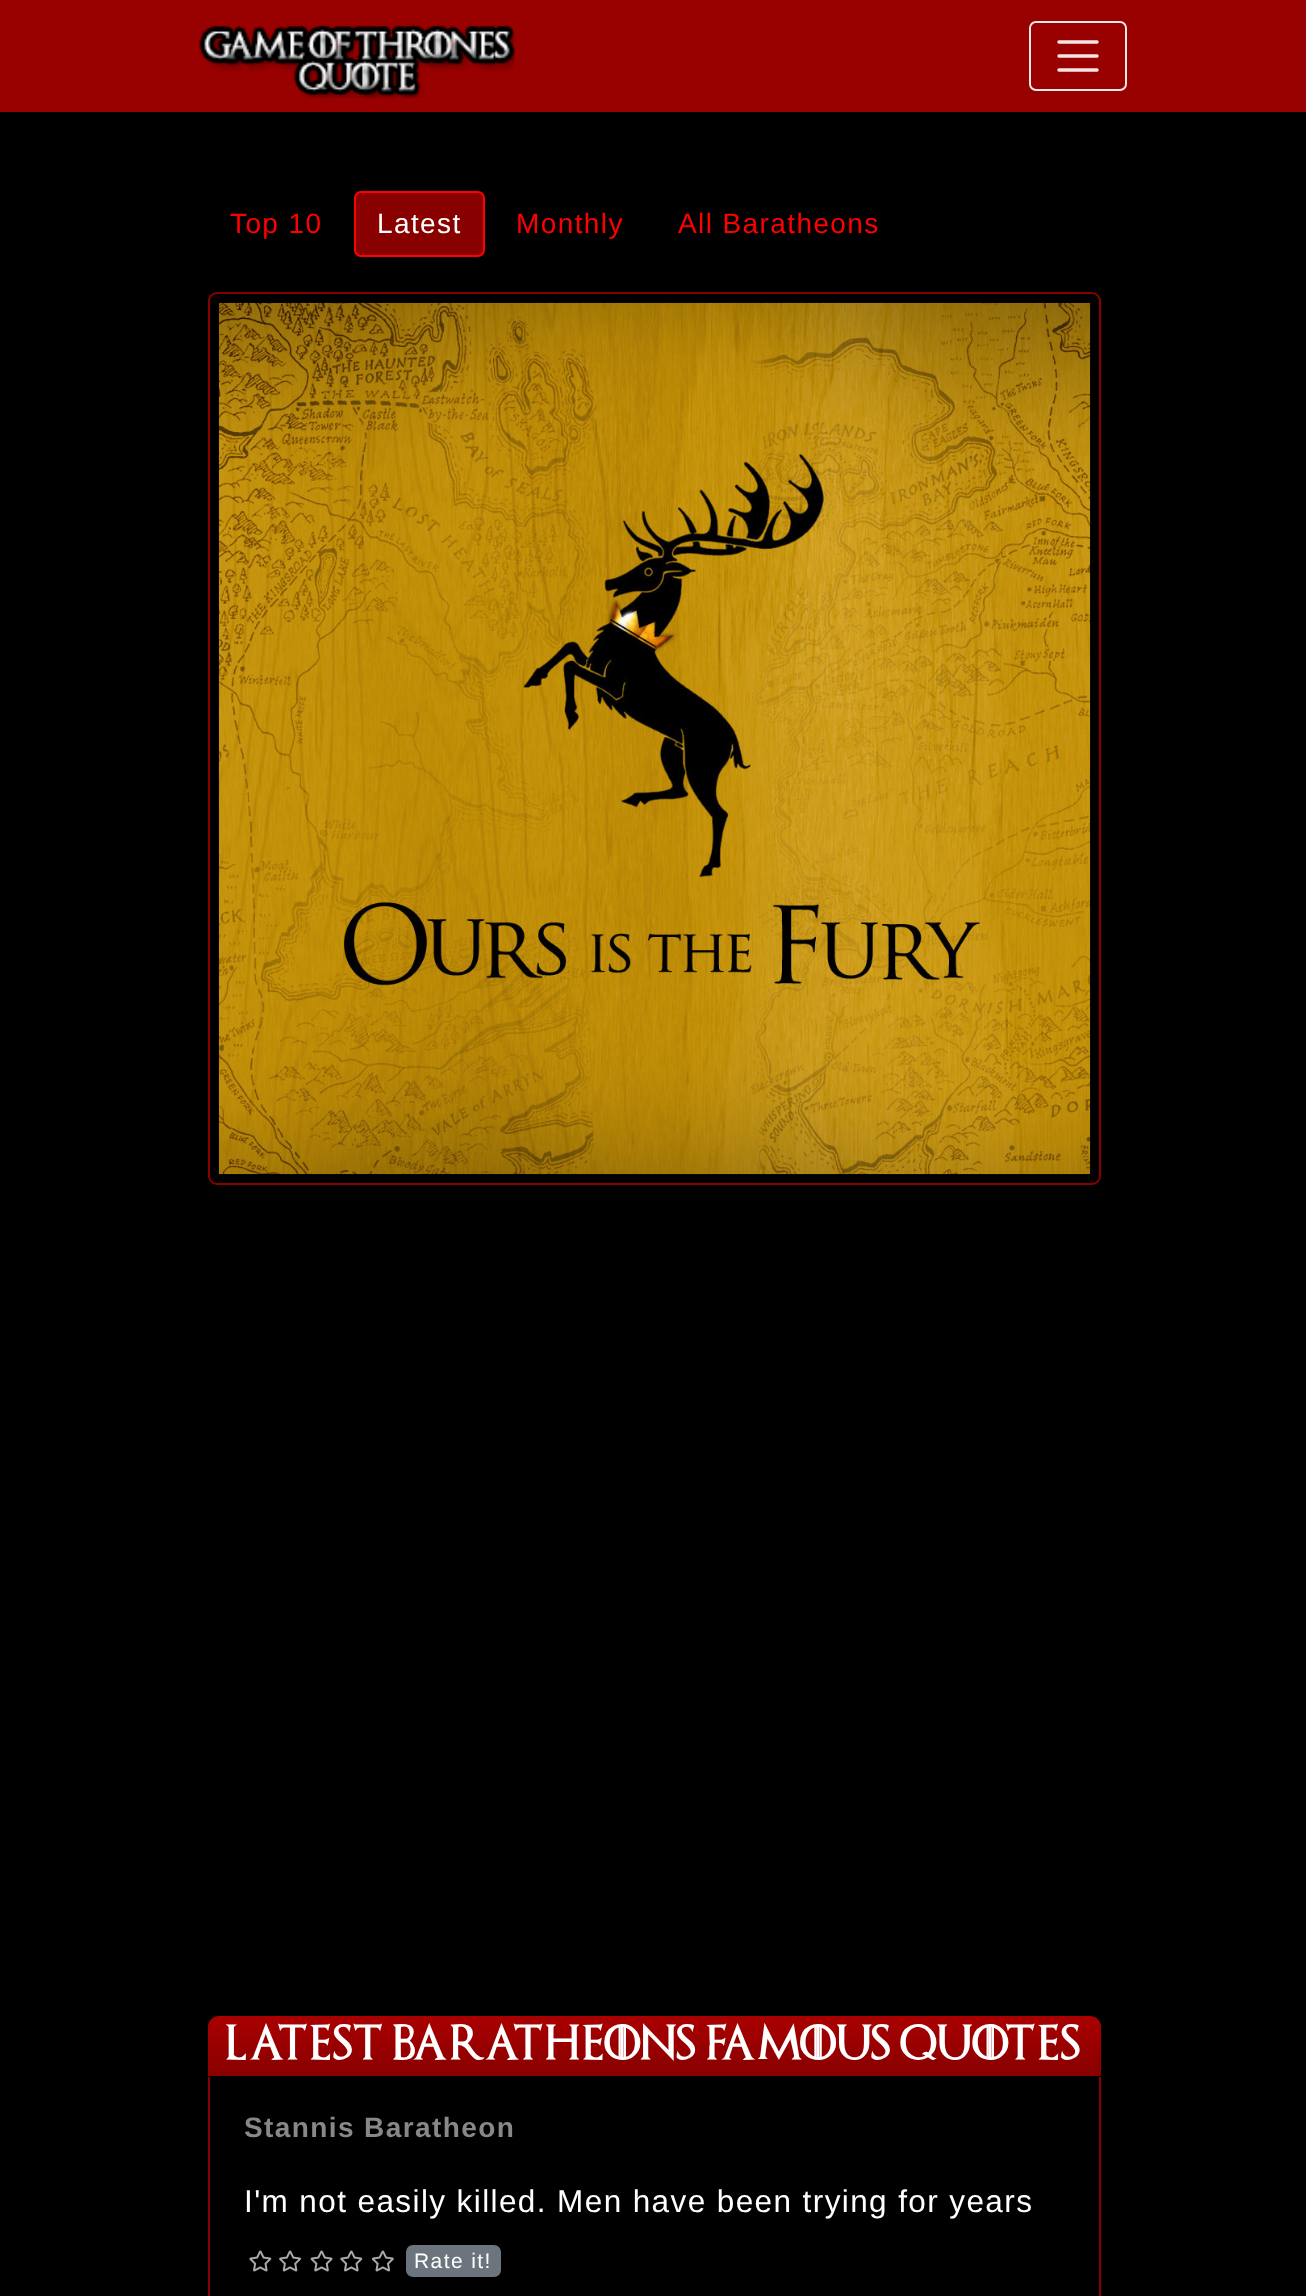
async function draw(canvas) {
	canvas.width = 1306;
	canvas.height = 2296;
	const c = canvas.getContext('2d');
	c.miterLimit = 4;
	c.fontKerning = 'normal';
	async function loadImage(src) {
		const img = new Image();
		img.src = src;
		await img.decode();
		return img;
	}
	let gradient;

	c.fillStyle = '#000';
	c.fillRect(0, 0, 1306, 2296);
	c.fillStyle = '#900';
	c.fillRect(0, 0, 1306, 112);
	c.drawImage(await loadImage('img1.png'), 199, 24, 316, 74);
	c.beginPath();
	c.roundRect(1030, 22, 96, 68, 6);
	c.strokeStyle = '#f5e6e6';
	c.lineWidth = 2;
	c.stroke();
	c.beginPath();
	c.moveTo(1059, 42);
	c.lineTo(1097, 42);
	c.moveTo(1059, 56);
	c.lineTo(1097, 56);
	c.moveTo(1059, 70);
	c.lineTo(1097, 70);
	c.lineWidth = 3.5;
	c.lineCap = 'round';
	c.stroke();
	c.letterSpacing = '1.4px';
	c.font = '28px Liberation Sans';
	c.fillStyle = '#f00';
	c.fillText('Top 10', 230, 233);
	c.fillStyle = '#800';
	c.beginPath();
	c.roundRect(355, 192, 129, 64, 6);
	c.fill();
	c.strokeStyle = '#f00';
	c.lineWidth = 2;
	c.stroke();
	c.fillStyle = '#fff';
	c.fillText('Latest', 377, 233);
	c.fillStyle = '#f00';
	c.fillText('Monthly', 516, 233);
	c.fillText('All Baratheons', 678, 233);
	c.beginPath();
	c.roundRect(209, 293, 891, 891, 8);
	c.strokeStyle = '#800';
	c.stroke();
	c.drawImage(await loadImage('img2.png'), 218, 302, 873, 873);
	gradient = c.createLinearGradient(655, 2016, 655, 2076);
	gradient.addColorStop(0, '#a00');
	gradient.addColorStop(1, '#800');
	c.fillStyle = gradient;
	c.beginPath();
	c.roundRect(208, 2016, 893, 60, [11, 11, 0, 0]);
	c.fill();
	c.font = 'bold 35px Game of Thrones';
	c.fillStyle = '#fff';
	c.fillText('LATEST BARATHEONS FAMOUS QUOTES', 225, 2060);
	c.fillStyle = '#800';
	c.fillRect(1099, 2077, 2, 219);
	c.fillRect(208, 2077, 2, 219);
	c.font = 'bold 28px Liberation Sans';
	c.fillStyle = '#888';
	c.fillText('Stannis Baratheon', 244, 2137);
	c.font = '31.5px Liberation Sans';
	c.fillStyle = '#fff';
	c.fillText('I\'m not easily killed. Men have been trying for years', 244, 2212);
	c.drawImage(await loadImage('img3.png'), 249, 2250, 23, 22);
	c.drawImage(await loadImage('img4.png'), 279, 2250, 22, 22);
	c.drawImage(await loadImage('img5.png'), 310, 2250, 23, 22);
	c.drawImage(await loadImage('img3.png'), 340, 2250, 23, 22);
	c.drawImage(await loadImage('img6.png'), 371, 2250, 23, 22);
	c.fillStyle = '#6c757d';
	c.beginPath();
	c.roundRect(406, 2245, 95, 32, 7);
	c.fill();
	c.font = '21px Liberation Sans';
	c.fillStyle = '#fff';
	c.fillText('Rate it!', 414, 2268);
}

draw(document.querySelector('canvas'));
